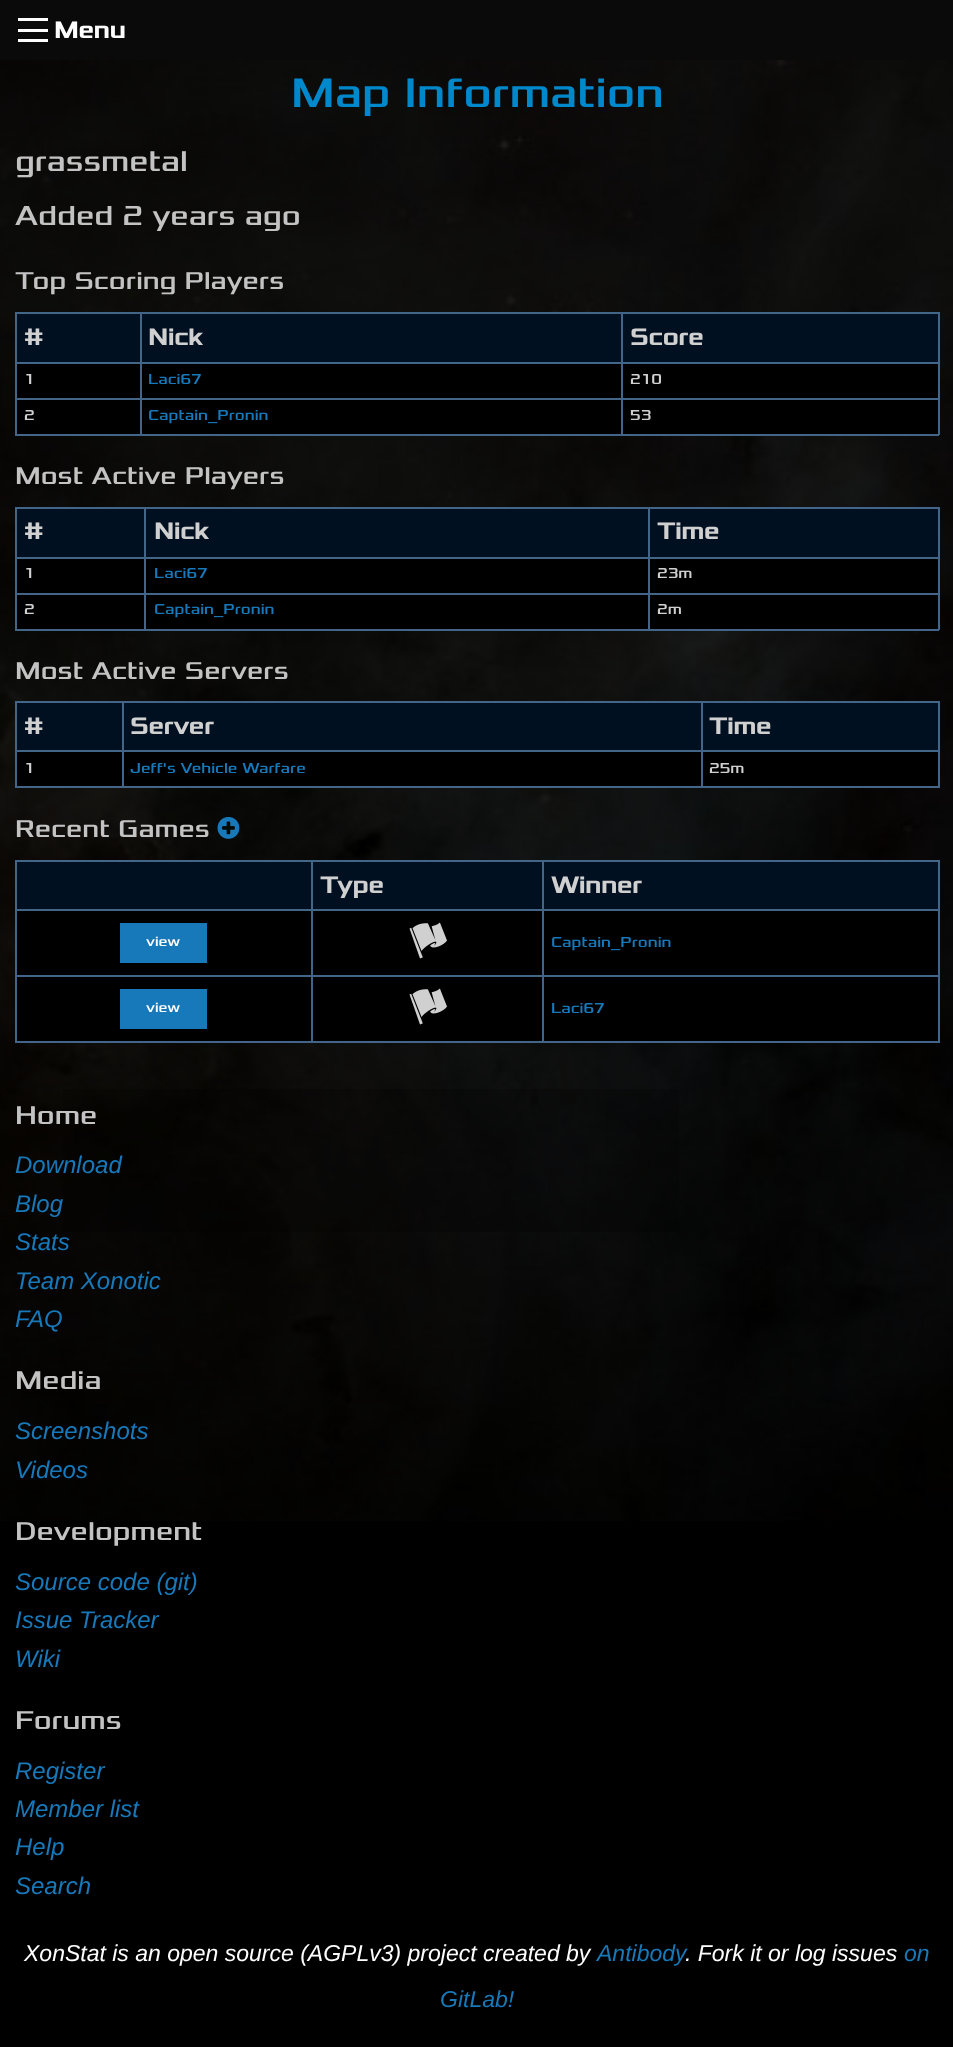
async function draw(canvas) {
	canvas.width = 953;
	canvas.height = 2047;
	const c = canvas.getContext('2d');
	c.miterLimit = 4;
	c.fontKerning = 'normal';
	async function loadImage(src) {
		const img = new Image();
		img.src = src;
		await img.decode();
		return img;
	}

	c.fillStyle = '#000';
	c.fillRect(0, 0, 953, 2047);
	c.drawImage(await loadImage('img1.png'), 0, 60, 953, 1461);
	for (const [x, y, w, h, color] of [
		[0, 0, 953, 60, '#0a0a0a'],
		[18, 39, 30, 3, '#fefefe'],
		[18, 29, 30, 3, '#fefefe'],
		[18, 18, 30, 3, '#fefefe'],
	]) {
		c.fillStyle = color;
		c.fillRect(x, y, w, h);
	}
	c.font = 'bold 24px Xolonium';
	c.fillText('Menu', 54, 38);
	c.font = '43.25px Xolonium';
	c.fillStyle = '#08c';
	c.fillText('Map Information', 291, 107);
	c.font = '30px Xolonium';
	c.fillStyle = '#c3c3c3';
	c.fillText('grassmetal', 15, 171);
	c.font = '28.75px Xolonium';
	c.fillText('Added 2 years ago', 15, 225);
	c.font = '25.5px Xolonium';
	c.fillText('Top Scoring Players', 15, 289);
	for (const [x, y, w, h, color] of [
		[17, 314, 123, 48, '#001021'],
		[621, 312, 318, 2, '#436688'],
		[621, 362, 318, 2, '#436688'],
		[17, 364, 921, 34, '#000'],
		[621, 398, 318, 2, '#436688'],
		[17, 400, 921, 34, '#000'],
		[938, 398, 2, 37, '#436688'],
		[621, 434, 318, 2, '#436688'],
		[621, 398, 2, 37, '#436688'],
		[140, 398, 483, 2, '#436688'],
		[621, 362, 2, 37, '#436688'],
		[140, 362, 483, 2, '#436688'],
		[621, 312, 2, 51, '#436688'],
		[140, 312, 483, 2, '#436688'],
		[140, 434, 483, 2, '#436688'],
		[140, 398, 2, 37, '#436688'],
		[15, 398, 126, 2, '#436688'],
		[140, 362, 2, 37, '#436688'],
		[15, 362, 126, 2, '#436688'],
		[140, 312, 2, 51, '#436688'],
		[15, 312, 126, 2, '#436688'],
		[15, 434, 126, 2, '#436688'],
		[15, 398, 2, 37, '#436688'],
		[15, 362, 2, 37, '#436688'],
		[15, 312, 2, 51, '#436688'],
	]) {
		c.fillStyle = color;
		c.fillRect(x, y, w, h);
	}
	c.font = 'bold 24px Xolonium';
	c.fillStyle = '#d0d0d0';
	c.fillText('#', 24, 345);
	c.fillStyle = '#001021';
	c.fillRect(142, 314, 479, 48);
	c.fillStyle = '#d0d0d0';
	c.fillText('Nick', 148, 345);
	for (const [x, y, w, h, color] of [
		[623, 314, 315, 48, '#001021'],
		[938, 362, 2, 37, '#436688'],
		[938, 312, 2, 51, '#436688'],
	]) {
		c.fillStyle = color;
		c.fillRect(x, y, w, h);
	}
	c.fillStyle = '#d0d0d0';
	c.fillText('Score', 630, 345);
	c.font = '15px Xolonium';
	c.fillText('1', 24, 384);
	c.fillStyle = '#1779ba';
	c.fillText('Laci67', 148, 384);
	c.fillStyle = '#d0d0d0';
	c.fillText('210', 630, 384);
	c.fillText('2', 24, 420);
	c.fillStyle = '#1779ba';
	c.fillText('Captain_Pronin', 148, 420);
	c.fillStyle = '#d0d0d0';
	c.fillText('53', 630, 420);
	c.font = '25.5px Xolonium';
	c.fillStyle = '#c3c3c3';
	c.fillText('Most Active Players', 15, 484);
	for (const [x, y, w, h, color] of [
		[17, 509, 127, 48, '#001021'],
		[648, 507, 291, 2, '#436688'],
		[648, 557, 291, 2, '#436688'],
		[17, 559, 921, 34, '#000'],
		[648, 593, 291, 2, '#436688'],
		[17, 595, 921, 34, '#000'],
		[938, 593, 2, 37, '#436688'],
		[648, 629, 291, 2, '#436688'],
		[648, 593, 2, 37, '#436688'],
		[144, 593, 506, 2, '#436688'],
		[648, 557, 2, 37, '#436688'],
		[144, 557, 506, 2, '#436688'],
		[648, 507, 2, 51, '#436688'],
		[144, 507, 506, 2, '#436688'],
		[144, 629, 506, 2, '#436688'],
		[144, 593, 2, 37, '#436688'],
		[15, 593, 131, 2, '#436688'],
		[144, 557, 2, 37, '#436688'],
		[15, 557, 131, 2, '#436688'],
		[144, 507, 2, 51, '#436688'],
		[15, 507, 131, 2, '#436688'],
		[15, 629, 131, 2, '#436688'],
		[15, 593, 2, 37, '#436688'],
		[15, 557, 2, 37, '#436688'],
		[15, 507, 2, 51, '#436688'],
	]) {
		c.fillStyle = color;
		c.fillRect(x, y, w, h);
	}
	c.font = 'bold 24px Xolonium';
	c.fillStyle = '#d0d0d0';
	c.fillText('#', 24, 539);
	c.fillStyle = '#001021';
	c.fillRect(146, 509, 502, 48);
	c.fillStyle = '#d0d0d0';
	c.fillText('Nick', 154, 539);
	for (const [x, y, w, h, color] of [
		[650, 509, 288, 48, '#001021'],
		[938, 557, 2, 37, '#436688'],
		[938, 507, 2, 51, '#436688'],
	]) {
		c.fillStyle = color;
		c.fillRect(x, y, w, h);
	}
	c.fillStyle = '#d0d0d0';
	c.fillText('Time', 657, 539);
	c.font = '15px Xolonium';
	c.fillText('1', 24, 578);
	c.fillStyle = '#1779ba';
	c.fillText('Laci67', 154, 578);
	c.fillStyle = '#d0d0d0';
	c.fillText('23m', 657, 578);
	c.fillText('2', 24, 614);
	c.fillStyle = '#1779ba';
	c.fillText('Captain_Pronin', 154, 614);
	c.fillStyle = '#d0d0d0';
	c.fillText('2m', 657, 614);
	c.font = '25.5px Xolonium';
	c.fillStyle = '#c3c3c3';
	c.fillText('Most Active Servers', 15, 679);
	for (const [x, y, w, h, color] of [
		[17, 703, 105, 47, '#001021'],
		[701, 701, 238, 2, '#436688'],
		[701, 750, 238, 2, '#436688'],
		[17, 752, 921, 34, '#000'],
		[938, 750, 2, 38, '#436688'],
		[701, 786, 238, 2, '#436688'],
		[701, 750, 2, 38, '#436688'],
		[122, 750, 580, 2, '#436688'],
		[701, 701, 2, 51, '#436688'],
		[122, 701, 580, 2, '#436688'],
		[122, 786, 580, 2, '#436688'],
		[122, 750, 2, 38, '#436688'],
		[15, 750, 108, 2, '#436688'],
		[122, 701, 2, 51, '#436688'],
		[15, 701, 108, 2, '#436688'],
		[15, 786, 108, 2, '#436688'],
		[15, 750, 2, 38, '#436688'],
		[15, 701, 2, 51, '#436688'],
	]) {
		c.fillStyle = color;
		c.fillRect(x, y, w, h);
	}
	c.font = 'bold 24px Xolonium';
	c.fillStyle = '#d0d0d0';
	c.fillText('#', 24, 734);
	c.fillStyle = '#001021';
	c.fillRect(124, 703, 577, 47);
	c.fillStyle = '#d0d0d0';
	c.fillText('Server', 130, 734);
	c.fillStyle = '#001021';
	c.fillRect(703, 703, 235, 47);
	c.fillStyle = '#436688';
	c.fillRect(938, 701, 2, 51);
	c.fillStyle = '#d0d0d0';
	c.fillText('Time', 709, 734);
	c.font = '15px Xolonium';
	c.fillText('1', 24, 773);
	c.fillStyle = '#1779ba';
	c.fillText('Jeff\'s Vehicle Warfare', 130, 773);
	c.fillStyle = '#d0d0d0';
	c.fillText('25m', 709, 773);
	c.font = '25.5px Xolonium';
	c.fillStyle = '#c3c3c3';
	c.fillText('Recent Games', 15, 837);
	c.drawImage(await loadImage('img2.png'), 217, 817, 23, 22);
	for (const [x, y, w, h, color] of [
		[17, 862, 294, 47, '#001021'],
		[542, 860, 397, 2, '#436688'],
		[542, 909, 397, 2, '#436688'],
		[17, 911, 921, 64, '#000'],
		[542, 975, 397, 2, '#436688'],
		[17, 977, 921, 64, '#000'],
		[938, 975, 2, 68, '#436688'],
		[542, 1041, 397, 2, '#436688'],
		[542, 975, 2, 68, '#436688'],
		[311, 975, 232, 2, '#436688'],
		[542, 909, 2, 68, '#436688'],
		[311, 909, 232, 2, '#436688'],
		[542, 860, 2, 51, '#436688'],
		[311, 860, 232, 2, '#436688'],
		[311, 1041, 232, 2, '#436688'],
		[311, 975, 2, 68, '#436688'],
		[15, 975, 297, 2, '#436688'],
		[311, 909, 2, 68, '#436688'],
		[15, 909, 297, 2, '#436688'],
		[311, 860, 2, 51, '#436688'],
		[15, 860, 297, 2, '#436688'],
		[15, 1041, 297, 2, '#436688'],
		[15, 975, 2, 68, '#436688'],
		[15, 909, 2, 68, '#436688'],
		[15, 860, 2, 51, '#436688'],
		[313, 862, 229, 47, '#001021'],
	]) {
		c.fillStyle = color;
		c.fillRect(x, y, w, h);
	}
	c.font = 'bold 24px Xolonium';
	c.fillStyle = '#d0d0d0';
	c.fillText('Type', 320, 893);
	for (const [x, y, w, h, color] of [
		[544, 862, 394, 47, '#001021'],
		[938, 909, 2, 68, '#436688'],
		[938, 860, 2, 51, '#436688'],
	]) {
		c.fillStyle = color;
		c.fillRect(x, y, w, h);
	}
	c.fillStyle = '#d0d0d0';
	c.fillText('Winner', 551, 893);
	c.fillStyle = '#1779ba';
	c.fillRect(120, 923, 87, 40);
	c.font = '14px Xolonium';
	c.fillStyle = '#fefefe';
	c.fillText('view', 146, 946);
	c.drawImage(await loadImage('img3.png'), 409, 922, 38, 37);
	c.font = '15px Xolonium';
	c.fillStyle = '#1779ba';
	c.fillText('Captain_Pronin', 551, 947);
	c.fillRect(120, 989, 87, 40);
	c.font = '14px Xolonium';
	c.fillStyle = '#fefefe';
	c.fillText('view', 146, 1012);
	c.drawImage(await loadImage('img3.png'), 409, 988, 38, 37);
	c.font = '15px Xolonium';
	c.fillStyle = '#1779ba';
	c.fillText('Laci67', 551, 1013);
	c.fillStyle = '#00000033';
	c.fillRect(63, 1089, 616, 143);
	c.font = '27px Xolonium';
	c.fillStyle = '#c3c3c3';
	c.fillText('Home', 15, 1124);
	c.font = 'italic 24px Liberation Sans';
	c.fillStyle = '#1779ba';
	for (const [text, x, y] of [
		['Download', 15, 1173],
		['Blog', 15, 1212],
		['Stats', 15, 1250],
		['Team Xonotic', 15, 1289],
		['FAQ', 15, 1327],
	]) {
		c.fillText(text, x, y);
	}
	c.font = '27px Xolonium';
	c.fillStyle = '#c3c3c3';
	c.fillText('Media', 15, 1389);
	c.font = 'italic 24px Liberation Sans';
	c.fillStyle = '#1779ba';
	c.fillText('Screenshots', 15, 1439);
	c.fillText('Videos', 15, 1478);
	c.font = '27px Xolonium';
	c.fillStyle = '#c3c3c3';
	c.fillText('Development', 15, 1540);
	c.font = 'italic 24px Liberation Sans';
	c.fillStyle = '#1779ba';
	for (const [text, x, y] of [
		['Source code (git)', 15, 1590],
		['Issue Tracker', 15, 1628],
		['Wiki', 15, 1667],
	]) {
		c.fillText(text, x, y);
	}
	c.font = '27px Xolonium';
	c.fillStyle = '#c3c3c3';
	c.fillText('Forums', 15, 1729);
	c.font = 'italic 24px Liberation Sans';
	c.fillStyle = '#1779ba';
	for (const [text, x, y] of [
		['Register', 15, 1779],
		['Member list', 15, 1817],
		['Help', 15, 1855],
		['Search', 15, 1894],
	]) {
		c.fillText(text, x, y);
	}
	c.font = 'italic 23px Liberation Sans';
	c.fillStyle = '#fefefe';
	c.fillText('XonStat is an open source (AGPLv3) project created by', 24, 1961);
	c.fillStyle = '#1779ba';
	c.fillText('Antibody', 597, 1961);
	c.fillStyle = '#fefefe';
	c.fillText('. Fork it or log issues', 685, 1961);
	c.fillStyle = '#1779ba';
	c.fillText('on', 904, 1961);
	c.fillText('GitLab!', 440, 2007);
}

draw(document.querySelector('canvas'));
